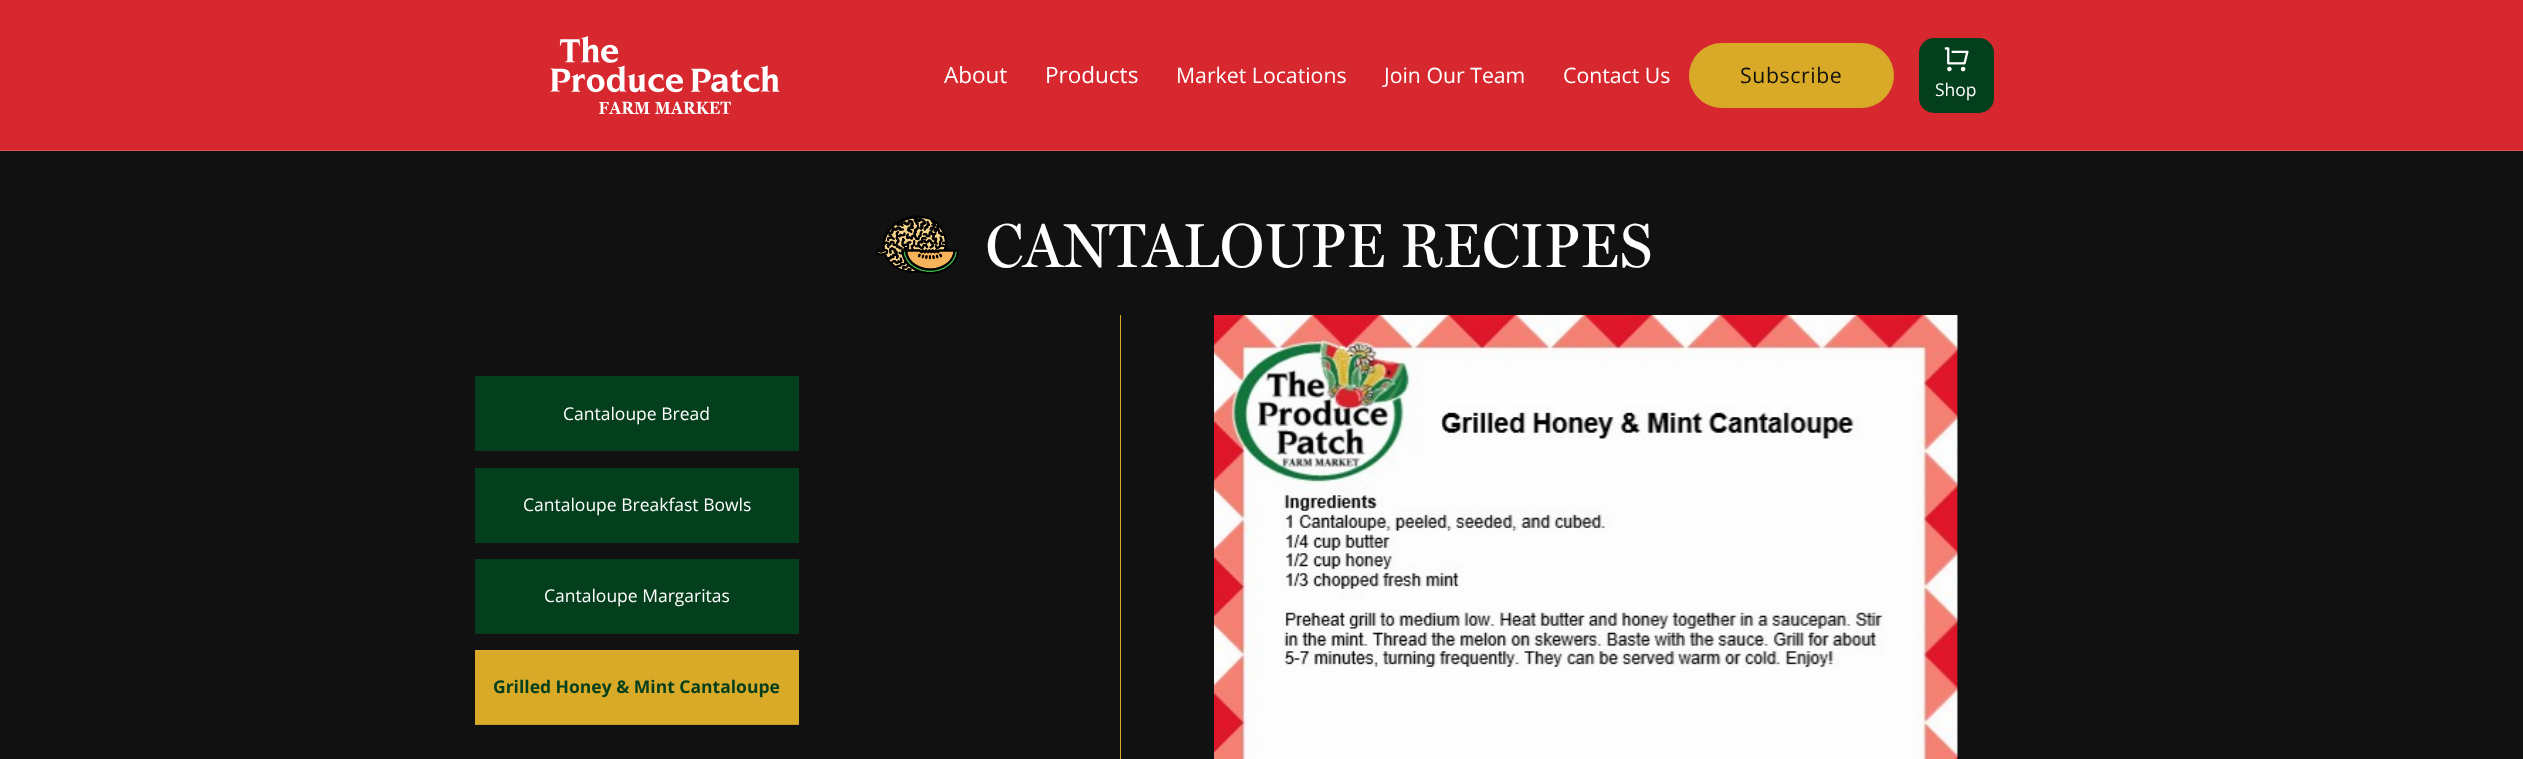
async function draw(canvas) {
	canvas.width = 2523;
	canvas.height = 759;
	const c = canvas.getContext('2d');
	c.miterLimit = 4;
	c.fontKerning = 'normal';
	async function loadImage(src) {
		const img = new Image();
		img.src = src;
		await img.decode();
		return img;
	}

	c.fillStyle = '#111';
	c.fillRect(0, 0, 2523, 759);
	c.fillStyle = '#d7282f';
	c.fillRect(0, 0, 2523, 150);
	c.fillStyle = '#df5359';
	c.fillRect(0, 150, 2523, 1);
	c.drawImage(await loadImage('img1.png'), 550, 36, 230, 78);
	c.font = '22.5px Open Sans';
	c.fillStyle = '#fff';
	c.fillText('About', 944, 83);
	c.fillText('Products', 1045, 83);
	c.font = '21.25px Open Sans';
	for (const [text, x, y] of [
		['Market Locations', 1176, 83],
		['Join Our Team', 1384, 83],
		['Contact Us', 1563, 83],
	]) {
		c.fillText(text, x, y);
	}
	c.fillStyle = '#d9a928';
	c.beginPath();
	c.roundRect(1689.5, 43.5, 204, 64, 32);
	c.fill();
	c.strokeStyle = '#d9a928';
	c.stroke();
	c.letterSpacing = '0.6px';
	c.fillStyle = '#111';
	c.fillText('Subscribe', 1740, 83);
	c.fillStyle = '#033f1c';
	c.beginPath();
	c.roundRect(1919, 38, 75, 75, 15);
	c.fill();
	c.drawImage(await loadImage('img2.png'), 1944, 47, 25, 25);
	c.letterSpacing = '0px';
	c.font = '17.5px Open Sans';
	c.fillStyle = '#fff';
	c.fillText('Shop', 1935, 96);
	c.drawImage(await loadImage('img3.png'), 876, 215, 83, 59);
	c.letterSpacing = '1.5px';
	c.font = '62.5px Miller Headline';
	c.fillText('CANTALOUPE RECIPES', 986, 267);
	for (const [x, y, w, h, color] of [
		[475, 375, 324, 1, '#111214'],
		[475, 376, 324, 74, '#033f1c'],
		[475, 450, 324, 1, '#053b1e'],
	]) {
		c.fillStyle = color;
		c.fillRect(x, y, w, h);
	}
	c.letterSpacing = '0px';
	c.font = '17.5px Open Sans';
	c.fillStyle = '#fff';
	c.fillText('Cantaloupe Bread', 563, 420);
	c.fillStyle = '#033f1c';
	c.fillRect(475, 468, 324, 75);
	c.fillStyle = '#053b1e';
	c.fillRect(475, 541, 324, 1);
	c.fillStyle = '#fff';
	c.fillText('Cantaloupe Breakfast Bowls', 523, 511);
	c.fillStyle = '#033f1c';
	c.fillRect(475, 559, 324, 74);
	c.fillStyle = '#053b1e';
	c.fillRect(475, 633, 324, 1);
	c.fillStyle = '#fff';
	c.fillText('Cantaloupe Margaritas', 544, 602);
	c.fillStyle = '#d9a928';
	c.fillRect(475, 650, 324, 74);
	c.fillStyle = '#c59b29';
	c.fillRect(475, 724, 324, 1);
	c.font = 'bold 17.5px Open Sans';
	c.fillStyle = '#033f1c';
	c.fillText('Grilled Honey & Mint Cantaloupe', 493, 693);
	c.fillStyle = '#d9a928';
	c.fillRect(1120, 315, 1, 444);
	c.drawImage(await loadImage('img4.png'), 1214, 315, 744, 444);
}

draw(document.querySelector('canvas'));
